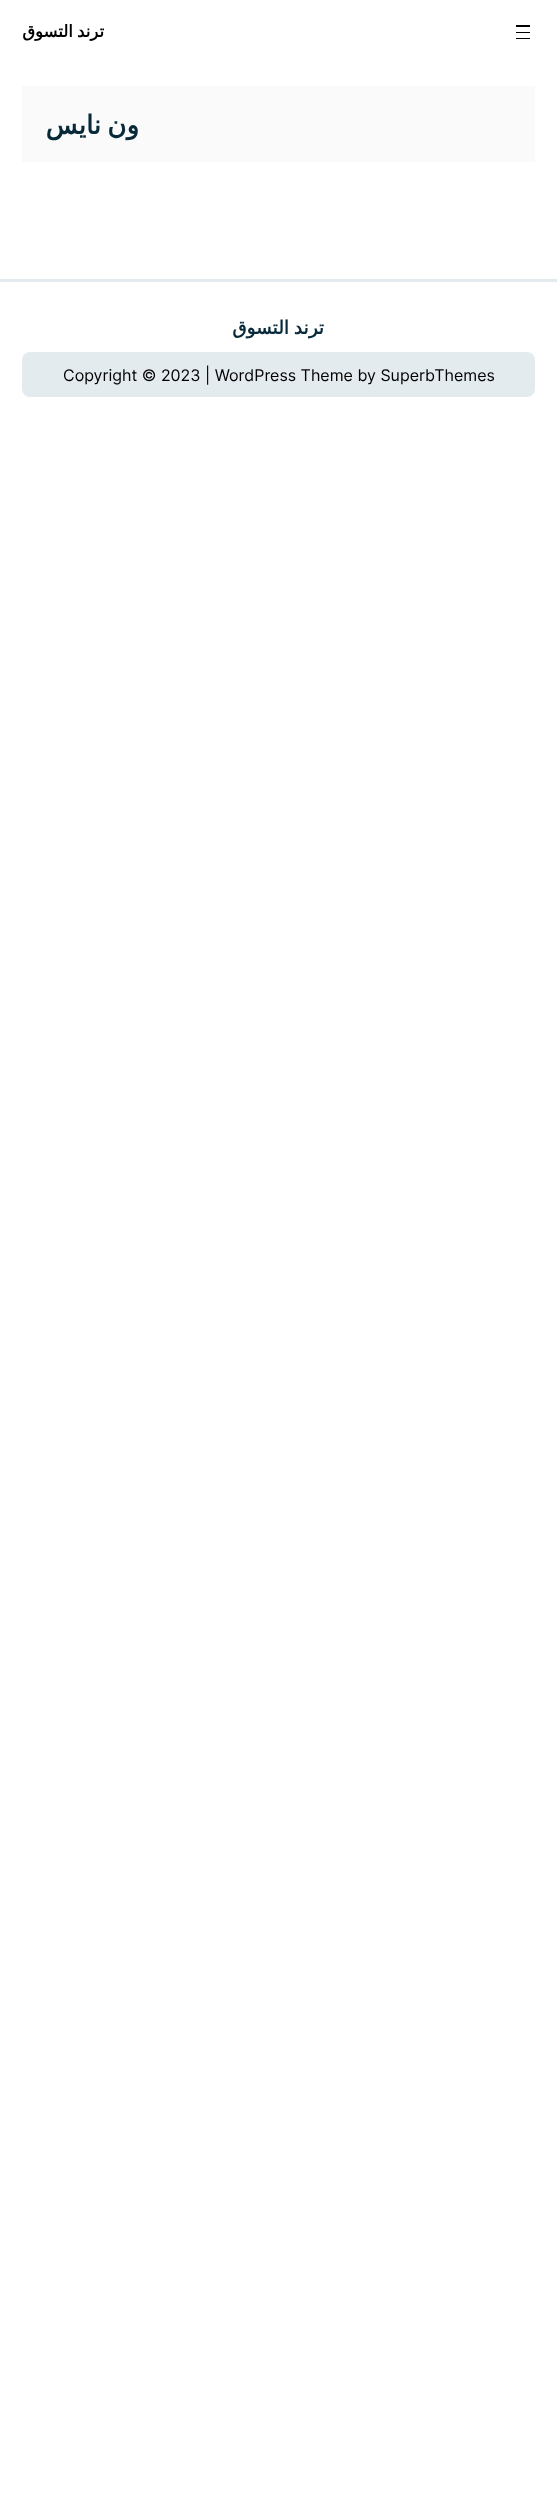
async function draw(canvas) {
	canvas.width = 557;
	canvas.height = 2512;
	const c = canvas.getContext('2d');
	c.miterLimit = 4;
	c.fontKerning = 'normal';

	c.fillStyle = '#fff';
	c.fillRect(0, 0, 557, 2512);
	c.wordSpacing = '-1px';
	c.direction = 'rtl';
	c.font = 'bold 16.5px DejaVu Sans';
	c.fillStyle = '#000';
	c.fillText('ترند التسوق', 104, 37);
	for (const [x, y, w, h, color] of [
		[516, 25, 14, 2, '#000'],
		[516, 32, 14, 1, '#000'],
		[516, 38, 14, 1, '#000'],
		[22, 86, 513, 76, '#fafafa'],
	]) {
		c.fillStyle = color;
		c.fillRect(x, y, w, h);
	}
	c.wordSpacing = '-2px';
	c.font = 'bold 26px DejaVu Sans';
	c.fillStyle = '#07293a';
	c.fillText('ون نايس', 139, 134);
	c.fillStyle = '#e4ebee';
	c.fillRect(0, 279, 557, 3);
	c.wordSpacing = '-1px';
	c.font = 'bold 18.5px DejaVu Sans';
	c.fillStyle = '#07293a';
	c.fillText('ترند التسوق', 324, 334);
	c.fillStyle = '#e4ebee';
	c.beginPath();
	c.roundRect(22, 352, 513, 45, 8);
	c.fill();
	c.wordSpacing = '0px';
	c.direction = 'ltr';
	c.font = '16px Inter';
	c.fillStyle = '#000';
	c.fillText('Copyright © 2023 | WordPress Theme by SuperbThemes', 63, 381);
}

draw(document.querySelector('canvas'));
